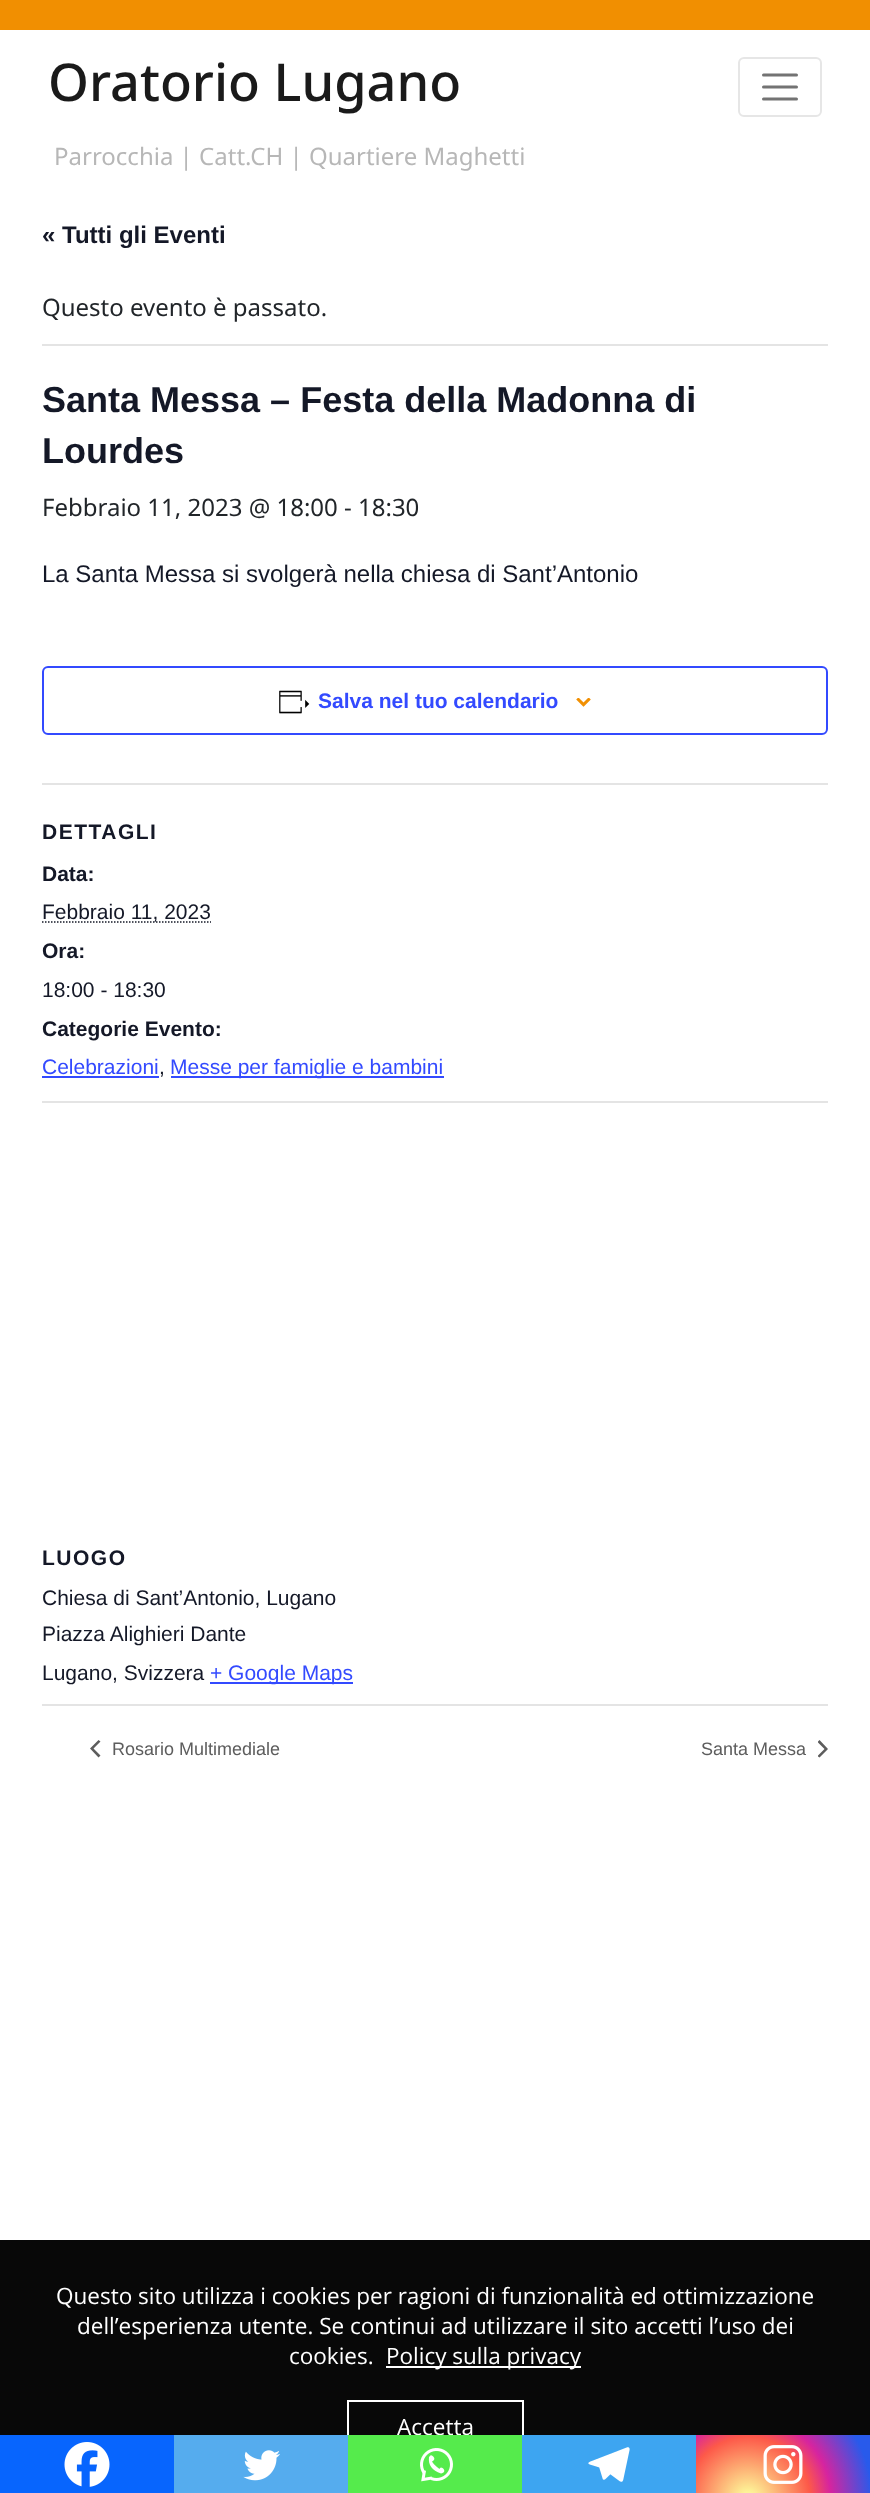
async function draw(canvas) {
	canvas.width = 870;
	canvas.height = 2493;
	const c = canvas.getContext('2d');
	c.miterLimit = 4;
	c.fontKerning = 'normal';
	async function loadImage(src) {
		const img = new Image();
		img.src = src;
		await img.decode();
		return img;
	}
	let gradient;

	c.fillStyle = '#fff';
	c.fillRect(0, 0, 870, 2493);
	c.fillStyle = '#f18f01';
	c.fillRect(0, 0, 870, 30);
	c.font = '500 52.25px Noto Sans';
	c.fillStyle = '#1a1a1a';
	c.fillText('Oratorio Lugano', 48, 101);
	c.beginPath();
	c.roundRect(739, 58, 82, 58, 5);
	c.strokeStyle = '#e6e6e6';
	c.lineWidth = 2;
	c.stroke();
	c.beginPath();
	c.moveTo(763.5, 75);
	c.lineTo(796.5, 75);
	c.moveTo(763.5, 87);
	c.lineTo(796.5, 87);
	c.moveTo(763.5, 99);
	c.lineTo(796.5, 99);
	c.strokeStyle = '#737373';
	c.lineWidth = 3;
	c.lineCap = 'round';
	c.stroke();
	c.font = '24px Noto Sans';
	c.fillStyle = '#b7b7b7';
	c.fillText('Parrocchia | Catt.CH | Quartiere Maghetti', 54, 165);
	c.font = 'bold 24px Liberation Sans';
	c.fillStyle = '#141827';
	c.fillText('« Tutti gli Eventi', 42, 243);
	c.fillStyle = '#e4e4e4';
	c.fillRect(42, 344, 786, 2);
	c.font = '24px Noto Sans';
	c.fillStyle = '#212529';
	c.fillText('Questo evento è passato.', 42, 316);
	c.font = 'bold 36px Liberation Sans';
	c.fillStyle = '#141827';
	c.fillText('Santa Messa – Festa della Madonna di', 42, 412);
	c.fillText('Lourdes', 42, 463);
	c.font = '24px Noto Sans';
	c.fillStyle = '#212529';
	c.fillText('Febbraio 11, 2023 @ 18:00 - 18:30', 42, 516);
	c.font = '24px Liberation Sans';
	c.fillStyle = '#141827';
	c.fillText('La Santa Messa si svolgerà nella chiesa di Sant’Antonio', 42, 582);
	c.fillStyle = '#0765fe';
	c.fillRect(0, 2435, 174, 58);
	c.drawImage(await loadImage('img1.png'), 64, 2442, 46, 45);
	c.fillStyle = '#080808';
	c.fillRect(0, 2240, 870, 195);
	c.strokeStyle = '#fff';
	c.lineWidth = 2;
	c.strokeRect(348, 2401, 175, 51);
	c.fillStyle = '#55acee';
	c.fillRect(174, 2435, 174, 58);
	c.drawImage(await loadImage('img2.png'), 243, 2450, 37, 31);
	c.font = '22.5px Open Sans';
	c.fillStyle = '#fff';
	c.fillText('Accetta', 397, 2435);
	c.fillStyle = '#55eb4c';
	c.fillRect(348, 2435, 174, 58);
	c.drawImage(await loadImage('img3.png'), 420, 2448, 33, 34);
	c.fillStyle = '#3da5f1';
	c.fillRect(522, 2435, 174, 58);
	c.drawImage(await loadImage('img4.png'), 588, 2447, 42, 35);
	gradient = c.createRadialGradient(748, 2499, 0, 748, 2499, 138);
	gradient.addColorStop(0, '#fdf497');
	gradient.addColorStop(0.05, '#fdf497');
	gradient.addColorStop(0.45, '#fd5949');
	gradient.addColorStop(0.6, '#d6249f');
	gradient.addColorStop(0.9, '#285aeb');
	c.fillStyle = gradient;
	c.fillRect(696, 2435, 174, 58);
	c.drawImage(await loadImage('img5.png'), 763, 2445, 40, 39);
	c.beginPath();
	c.roundRect(43, 667, 784, 67, 5);
	c.strokeStyle = '#334aff';
	c.stroke();
	c.drawImage(await loadImage('img6.png'), 279, 690, 31, 24);
	c.font = 'bold 21px Liberation Sans';
	c.fillStyle = '#334aff';
	c.fillText('Salva nel tuo calendario', 318, 708);
	c.drawImage(await loadImage('img7.png'), 576, 698, 15, 9);
	c.fillStyle = '#e4e4e4';
	c.fillRect(42, 783, 786, 2);
	c.letterSpacing = '1.5px';
	c.fillStyle = '#141827';
	c.fillText('DETTAGLI', 42, 839);
	c.letterSpacing = '0px';
	c.fillText('Data:', 42, 881);
	c.beginPath();
	c.moveTo(42, 922);
	c.lineTo(211, 922);
	c.strokeStyle = '#141827';
	c.lineWidth = 1.5;
	c.lineCap = 'butt';
	c.setLineDash([1.5, 1.5]);
	c.stroke();
	c.font = '21px Liberation Sans';
	c.fillText('Febbraio 11, 2023', 42, 919);
	c.font = 'bold 21px Liberation Sans';
	c.fillText('Ora:', 42, 958);
	c.font = '21px Liberation Sans';
	c.fillText('18:00 - 18:30', 42, 997);
	c.font = 'bold 21px Liberation Sans';
	c.fillText('Categorie Evento:', 42, 1036);
	c.font = '21px Liberation Sans';
	c.fillStyle = '#334aff';
	c.fillText('Celebrazioni', 42, 1074);
	c.fillRect(42, 1076, 117, 2);
	c.fillStyle = '#141827';
	c.fillText(',', 159, 1074);
	c.fillStyle = '#334aff';
	c.fillRect(171, 1076, 273, 2);
	c.fillText('Messe per famiglie e bambini', 170, 1074);
	c.fillStyle = '#e4e4e4';
	c.fillRect(42, 1101, 786, 2);
	c.letterSpacing = '1.5px';
	c.font = 'bold 21px Liberation Sans';
	c.fillStyle = '#141827';
	c.fillText('LUOGO', 42, 1565);
	c.letterSpacing = '0px';
	c.font = '21px Liberation Sans';
	for (const [text, x, y] of [
		['Chiesa di Sant’Antonio, Lugano', 42, 1605],
		['Piazza Alighieri Dante', 42, 1641],
		['Lugano, Svizzera', 42, 1680],
	]) {
		c.fillText(text, x, y);
	}
	c.fillStyle = '#334aff';
	c.fillRect(210, 1682, 143, 2);
	c.fillText('+ Google Maps', 210, 1680);
	c.fillStyle = '#e4e4e4';
	c.fillRect(42, 1704, 786, 2);
	c.fillStyle = '#5d5d5d';
	c.beginPath();
	c.moveTo(100.5, 1755.5);
	c.lineTo(98.5, 1757.5);
	c.lineTo(90, 1748.5);
	c.lineTo(98.5, 1740);
	c.lineTo(100.5, 1741.5);
	c.lineTo(93.5, 1748.5);
	c.closePath();
	c.fill();
	c.font = '18px Liberation Sans';
	c.fillText('Rosario Multimediale', 112, 1755);
	c.fillText('Santa Messa', 701, 1755);
	c.save();
	c.beginPath();
	c.rect(818, 1740, 10, 18);
	c.clip();
	c.beginPath();
	c.moveTo(817.5, 1742);
	c.lineTo(819.5, 1740);
	c.lineTo(828, 1749);
	c.lineTo(819.5, 1757.5);
	c.lineTo(817.5, 1756);
	c.lineTo(824.5, 1749);
	c.closePath();
	c.fill();
	c.restore();
	c.font = '22.5px Open Sans';
	c.fillStyle = '#fff';
	for (const [text, x, y] of [
		['Questo sito utilizza i cookies per ragioni di funzionalità ed ottimizzazione', 56, 2304],
		['dell’esperienza utente. Se continui ad utilizzare il sito accetti l’uso dei', 77, 2334],
		['cookies.', 289, 2364],
	]) {
		c.fillText(text, x, y);
	}
	c.fillRect(386, 2366, 195, 2);
	c.fillText('Policy sulla privacy', 386, 2364);
}

draw(document.querySelector('canvas'));
